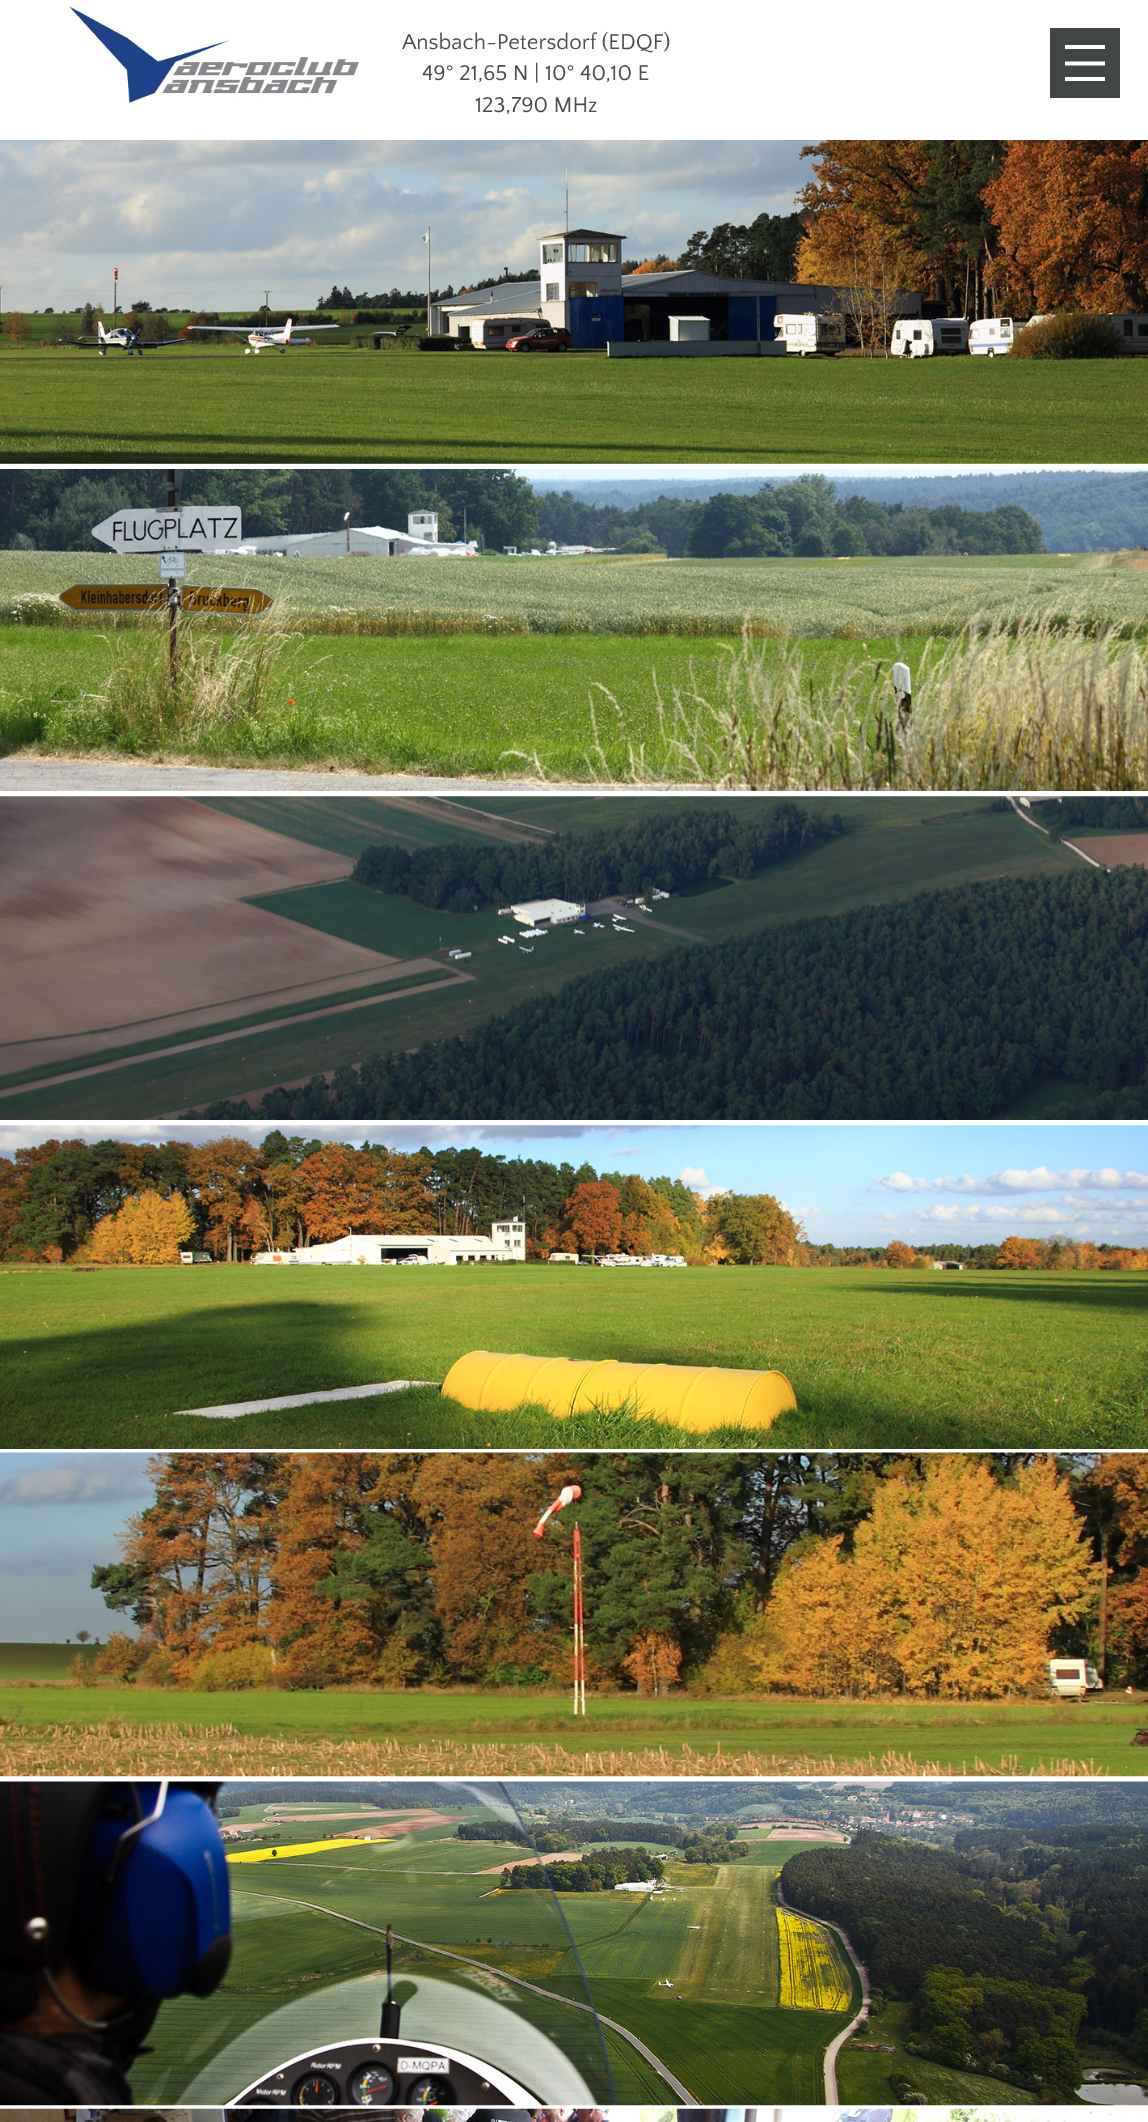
async function draw(canvas) {
	canvas.width = 1148;
	canvas.height = 2122;
	const c = canvas.getContext('2d');
	c.miterLimit = 4;
	c.fontKerning = 'normal';
	async function loadImage(src) {
		const img = new Image();
		img.src = src;
		await img.decode();
		return img;
	}

	c.fillStyle = '#fff';
	c.fillRect(0, 0, 1148, 2122);
	c.drawImage(await loadImage('img1.png'), 69, 4, 290, 100);
	c.font = '22.4px Quattrocento Sans';
	c.fillStyle = '#4d4d4d';
	for (const [text, x, y] of [
		['Ansbach-Petersdorf (EDQF)', 402, 49],
		['49° 21,65 N | 10° 40,10 E', 422, 80],
		['123,790 MHz', 475, 112],
	]) {
		c.fillText(text, x, y);
	}
	c.fillStyle = '#414545';
	c.fillRect(1050, 28, 70, 70);
	c.fillStyle = '#fff';
	c.fillRect(1065, 45, 40, 4);
	c.beginPath();
	c.moveTo(1065, 63.5);
	c.lineTo(1105, 63.5);
	c.strokeStyle = '#fff';
	c.lineWidth = 4.1;
	c.stroke();
	c.fillRect(1065, 77, 40, 4);
	c.drawImage(await loadImage('img2.png'), 0, 140, 1148, 324);
	c.drawImage(await loadImage('img3.png'), 0, 469, 1148, 322);
	c.drawImage(await loadImage('img4.png'), 0, 796, 1148, 324);
	c.drawImage(await loadImage('img5.png'), 0, 1125, 1148, 324);
	c.drawImage(await loadImage('img6.png'), 0, 1452, 1148, 325);
	c.drawImage(await loadImage('img7.png'), 0, 1781, 1148, 325);
	c.drawImage(await loadImage('img8.png'), 0, 2108, 1145, 14);
}

draw(document.querySelector('canvas'));
